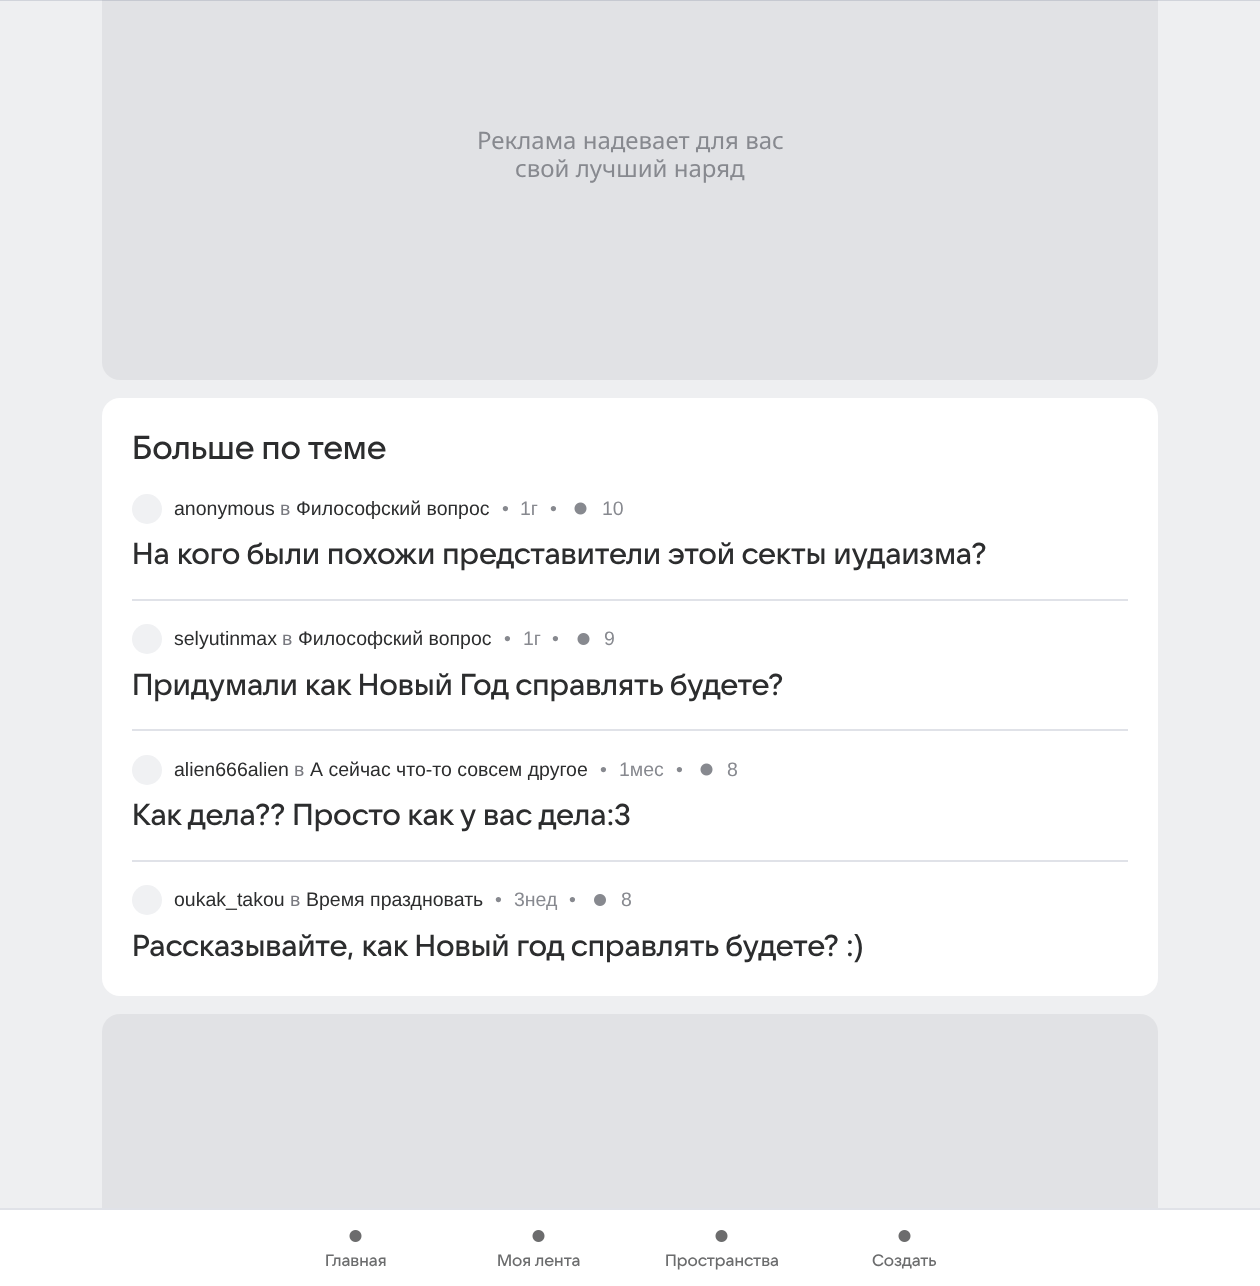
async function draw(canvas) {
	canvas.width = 1260;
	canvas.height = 1286;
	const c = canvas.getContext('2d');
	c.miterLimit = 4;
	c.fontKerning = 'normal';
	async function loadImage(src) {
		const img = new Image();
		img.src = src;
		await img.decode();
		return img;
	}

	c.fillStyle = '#eeeff1';
	c.fillRect(0, 0, 1260, 1286);
	c.fillStyle = '#d1d4db';
	c.fillRect(0, 0, 1260, 1);
	c.fillStyle = '#e1e2e5';
	c.beginPath();
	c.roundRect(102, -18, 1056, 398, 18);
	c.fill();
	c.fillStyle = '#c6c9d1';
	c.fillRect(102, 0, 1056, 1);
	c.font = '24px Noto Sans';
	c.fillStyle = '#87898f';
	c.fillText('Реклама надевает для вас', 477, 149);
	c.fillText('свой лучший наряд', 515, 177);
	c.fillStyle = '#fff';
	c.beginPath();
	c.roundRect(102, 398, 1056, 598, 18);
	c.fill();
	c.font = '500 33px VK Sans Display';
	c.fillStyle = '#2c2d2e';
	c.fillText('Больше по теме', 132, 459);
	c.fillStyle = '#f0f1f3';
	c.beginPath();
	c.arc(147, 509, 15, 0, 2 * Math.PI);
	c.fill();
	c.font = '19.5px Liberation Sans';
	c.fillStyle = '#2c2d2e';
	c.fillText('anonymous', 174, 515);
	c.fillStyle = '#797a80';
	c.fillText('в', 280, 515);
	c.fillStyle = '#2c2d2e';
	c.fillText('Философский вопрос', 296, 515);
	c.fillStyle = '#87898f';
	for (const [text, x, y] of [
		['•', 502, 515],
		['1г', 520, 515],
		['•', 550, 515],
	]) {
		c.fillText(text, x, y);
	}
	c.drawImage(await loadImage('img1.png'), 574, 502, 13, 13);
	c.fillText('10', 602, 515);
	c.font = '500 30px VK Sans Display';
	c.fillStyle = '#2c2d2e';
	c.fillText('На кого были похожи представители этой секты иудаизма?', 132, 564);
	c.fillStyle = '#e0e2e8';
	c.fillRect(132, 599, 996, 2);
	c.fillStyle = '#f0f1f3';
	c.beginPath();
	c.arc(147, 639, 15, 0, 2 * Math.PI);
	c.fill();
	c.font = '19.5px Liberation Sans';
	c.fillStyle = '#2c2d2e';
	c.fillText('selyutinmax', 174, 645);
	c.fillStyle = '#797a80';
	c.fillText('в', 282, 645);
	c.fillStyle = '#2c2d2e';
	c.fillText('Философский вопрос', 298, 645);
	c.fillStyle = '#87898f';
	for (const [text, x, y] of [
		['•', 504, 645],
		['1г', 523, 645],
		['•', 552, 645],
	]) {
		c.fillText(text, x, y);
	}
	c.drawImage(await loadImage('img2.png'), 577, 633, 13, 12);
	c.fillText('9', 604, 645);
	c.font = '500 30px VK Sans Display';
	c.fillStyle = '#2c2d2e';
	c.fillText('Придумали как Новый Год справлять будете?', 132, 695);
	c.fillStyle = '#e0e2e8';
	c.fillRect(132, 729, 996, 2);
	c.fillStyle = '#f0f1f3';
	c.beginPath();
	c.arc(147, 770, 15, 0, 2 * Math.PI);
	c.fill();
	c.font = '19.5px Liberation Sans';
	c.fillStyle = '#2c2d2e';
	c.fillText('alien666alien', 174, 776);
	c.fillStyle = '#797a80';
	c.fillText('в', 294, 776);
	c.fillStyle = '#2c2d2e';
	c.fillText('А сейчас что-то совсем другое', 310, 776);
	c.fillStyle = '#87898f';
	for (const [text, x, y] of [
		['•', 600, 776],
		['1мес', 619, 776],
		['•', 676, 776],
	]) {
		c.fillText(text, x, y);
	}
	c.drawImage(await loadImage('img1.png'), 700, 763, 13, 13);
	c.fillText('8', 727, 776);
	c.font = '500 30px VK Sans Display';
	c.fillStyle = '#2c2d2e';
	c.fillText('Как дела?? Просто как у вас дела:3', 132, 825);
	c.fillStyle = '#e0e2e8';
	c.fillRect(132, 860, 996, 2);
	c.fillStyle = '#f0f1f3';
	c.beginPath();
	c.arc(147, 900, 15, 0, 2 * Math.PI);
	c.fill();
	c.font = '19.5px Liberation Sans';
	c.fillStyle = '#2c2d2e';
	c.fillText('oukak_takou', 174, 906);
	c.fillStyle = '#797a80';
	c.fillText('в', 290, 906);
	c.fillStyle = '#2c2d2e';
	c.fillText('Время праздновать', 306, 906);
	c.fillStyle = '#87898f';
	for (const [text, x, y] of [
		['•', 495, 906],
		['3нед', 514, 906],
		['•', 569, 906],
	]) {
		c.fillText(text, x, y);
	}
	c.drawImage(await loadImage('img3.png'), 594, 894, 12, 12);
	c.fillText('8', 621, 906);
	c.font = '500 30px VK Sans Display';
	c.fillStyle = '#2c2d2e';
	c.fillText('Рассказывайте, как Новый год справлять будете? :)', 132, 956);
	c.fillStyle = '#e1e2e5';
	c.beginPath();
	c.roundRect(102, 1014, 1056, 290, 18);
	c.fill();
	c.fillStyle = '#fff';
	c.fillRect(0, 1210, 1260, 76);
	c.fillStyle = '#e0e2e8';
	c.fillRect(0, 1208, 1260, 2);
	c.drawImage(await loadImage('img4.png'), 349, 1230, 13, 12);
	c.font = '500 16.5px VK Sans Display';
	c.fillStyle = '#6b6c6d';
	c.fillText('Главная', 325, 1266);
	c.drawImage(await loadImage('img4.png'), 532, 1230, 13, 12);
	c.fillText('Моя лента', 497, 1266);
	c.drawImage(await loadImage('img4.png'), 715, 1230, 13, 12);
	c.fillText('Пространства', 665, 1266);
	c.drawImage(await loadImage('img4.png'), 898, 1230, 13, 12);
	c.fillText('Создать', 872, 1266);
}

draw(document.querySelector('canvas'));
